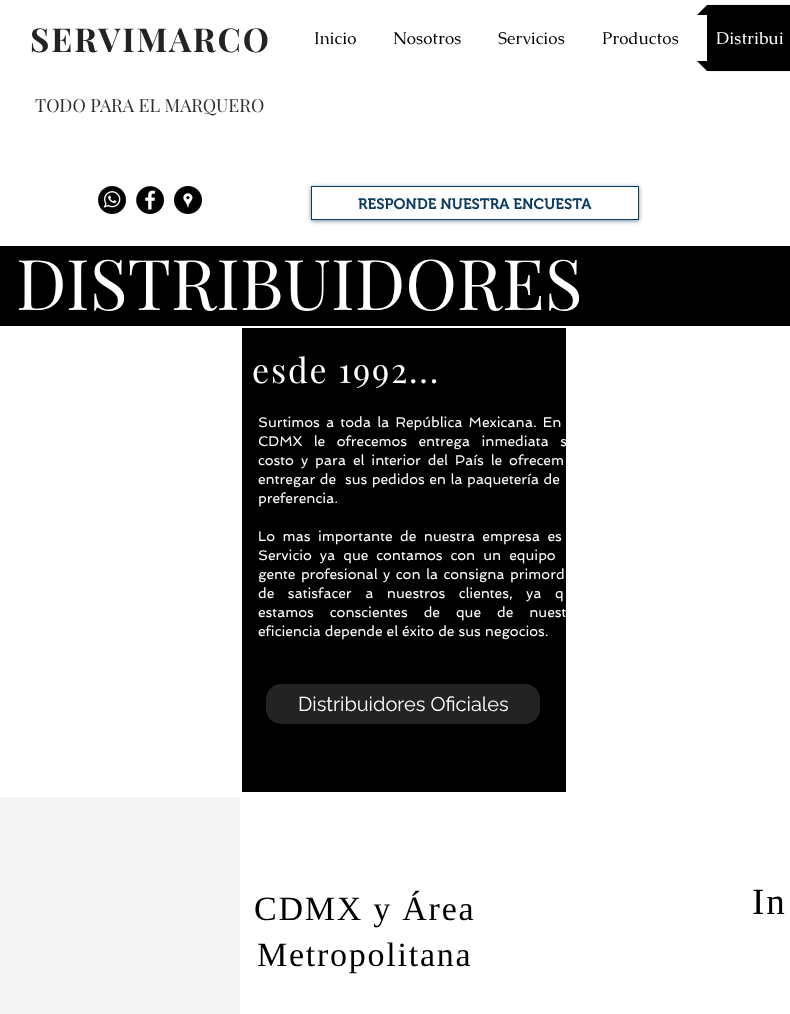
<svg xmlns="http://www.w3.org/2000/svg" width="790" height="1014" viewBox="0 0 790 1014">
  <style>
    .t1 { font: bold 33px Playfair Display; letter-spacing: 2px; fill: #232323; }
    .t2 { font: 17px Caudex; fill: #000; }
    .t3 { font: 17px Caudex; fill: #fff; }
    .t4 { font: 18px Playfair Display; fill: #2f2e2e; }
    .t5 { font: 600 15px 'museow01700'; fill: #0c3c60; }
    .t6 { font: 70px Playfair Display; fill: #fff; }
    .t7 { font: 34px Playfair Display; letter-spacing: 1.75px; fill: #fff; }
    .t8 { font: 14px Spinnaker; fill: #fff; }
    .t9 { font: 20px Raleway; fill: #fff; }
    .t10 { font: 34px Liberation Serif; letter-spacing: 1.75px; fill: #000; }
    .t11 { font: 37px Liberation Serif; letter-spacing: 2px; fill: #000; }
  </style>
  <defs>
    <clipPath id="clip1"><path d="M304 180H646V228H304ZM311 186H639V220H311Z" clip-rule="evenodd"/></clipPath>
  </defs>
  <rect width="100%" height="100%" fill="#fff"/>
  <text x="30" y="52" class="t1">SERVIMARCO</text>
  <text x="314" y="44" class="t2">Inicio</text>
  <text x="393" y="44" class="t2">Nosotros</text>
  <text x="498" y="44" class="t2">Servicios</text>
  <text x="602" y="44" class="t2">Productos</text>
  <rect x="709" y="5" width="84" height="66" fill="#00000033" filter="blur(1px)"/>
  <path d="M707 15H697L707 5Z" fill="#000"/>
  <rect x="707" y="5" width="83" height="66" fill="#000"/>
  <path d="M697 61H707V71Z" fill="#000"/>
  <text x="716" y="44" class="t3">Distribui</text>
  <text x="35" y="112" class="t4">TODO PARA EL MARQUERO</text>
  <image x="98" y="186" width="28" height="28" href="images/1.png"/>
  <image x="136" y="186" width="28" height="28" href="images/2.png"/>
  <image x="174" y="186" width="28" height="28" href="images/3.png"/>
  <g clip-path="url(#clip1)">
    <rect x="311" y="187" width="328" height="34" fill="#0c3c6099" filter="blur(2px)"/>
  </g>
  <rect x="311.5" y="186.5" width="327" height="33" fill="none" stroke="#0c3c60"/>
  <text x="358" y="209" class="t5">RESPONDE NUESTRA ENCUESTA</text>
  <rect x="0" y="246" width="790" height="80" fill="#000"/>
  <text x="16" y="310" class="t6">DISTRIBUIDORES</text>
  <rect x="242" y="328" width="324" height="464" fill="#000"/>
  <text x="252" y="383" class="t7">esde 1992...</text>
  <text x="258" y="427" word-spacing="2.25" class="t8">Surtimos a toda la República Mexicana. En</text>
  <text x="258" y="446" word-spacing="7.5" class="t8">CDMX le ofrecemos entrega inmediata s</text>
  <text x="258" y="465" word-spacing="3" class="t8">costo y para el interior del País le ofrecem</text>
  <text x="258" y="484" word-spacing="0.5" class="t8" xml:space="preserve">entregar de  sus pedidos en la paquetería de</text>
  <text x="258" y="503" class="t8">preferencia.</text>
  <text x="258" y="541" word-spacing="3.5" class="t8">Lo mas importante de nuestra empresa es</text>
  <text x="258" y="560" word-spacing="4" class="t8">Servicio ya que contamos con un equipo</text>
  <text x="258" y="579" word-spacing="1.5" class="t8">gente profesional y con la consigna primord</text>
  <text x="258" y="598" word-spacing="9.5" class="t8">de satisfacer a nuestros clientes, ya q</text>
  <text x="258" y="617" word-spacing="12" class="t8">estamos conscientes de que de nuest</text>
  <text x="258" y="636" class="t8">eficiencia depende el éxito de sus negocios.</text>
  <rect x="266" y="684" width="274" height="40" rx="15" fill="#232323"/>
  <text x="298" y="711" class="t9">Distribuidores Oficiales</text>
  <rect x="0" y="797" width="240" height="217" fill="#f5f5f5"/>
  <text x="254" y="920" class="t10">CDMX y Área</text>
  <text x="257" y="966" class="t10">Metropolitana</text>
  <text x="752" y="914" class="t11">In</text>
</svg>
